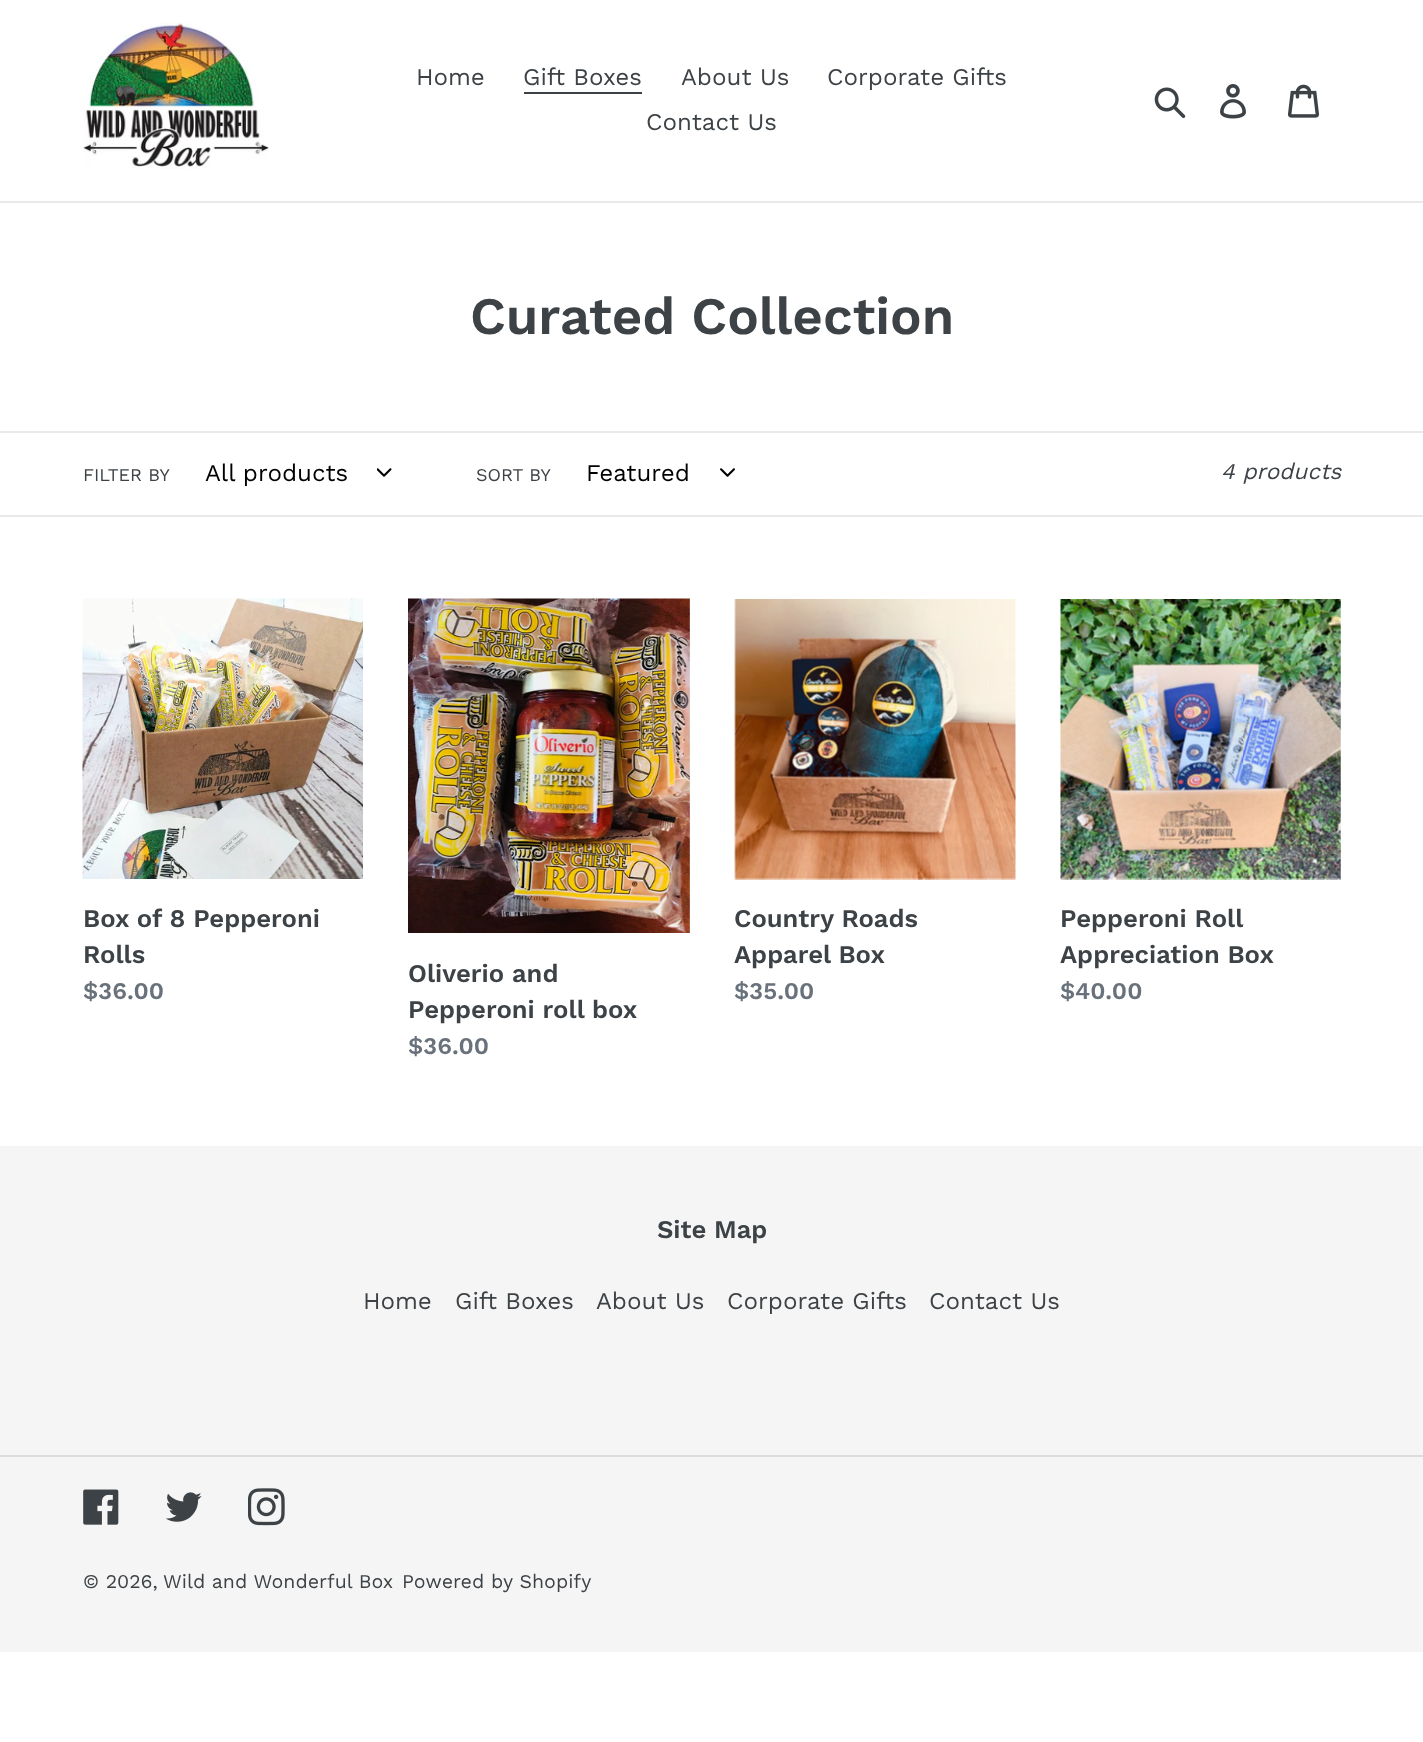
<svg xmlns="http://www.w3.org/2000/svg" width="1423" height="1742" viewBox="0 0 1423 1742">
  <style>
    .t1 { font: 24px Work Sans; fill: #3d4246; }
    .t2 { font: 600 52.5px Work Sans; fill: #3d4246; }
    .t3 { font: 18px Work Sans; fill: #3d4246; }
    .t4 { font: 24px Work Sans; fill: #000; }
    .t5 { font: italic 22.5px Work Sans; fill: #3d4246; }
    .t6 { font: 600 25.5px Work Sans; fill: #3d4246; }
    .t7 { font: 600 24px Work Sans; fill: #69727b; }
    .t8 { font: 19.5px Work Sans; fill: #3d4246; }
  </style>
  <rect width="100%" height="100%" fill="#fff"/>
  <rect x="0" y="201" width="1423" height="2" fill="#e8e9eb"/>
  <image x="83" y="22" width="186" height="147" href="images/1.png"/>
  <text x="416" y="85" class="t1">Home</text>
  <text x="523" y="85" class="t1">Gift Boxes</text>
  <rect x="524" y="92" width="118" height="2" fill="#3d4246"/>
  <text x="681" y="85" class="t1">About Us</text>
  <text x="827" y="85" class="t1">Corporate Gifts</text>
  <text x="646" y="130" class="t1">Contact Us</text>
  <image x="1154" y="87" width="32" height="32" href="images/2.png"/>
  <image x="1220" y="84" width="26" height="35" href="images/3.png"/>
  <image x="1287" y="84" width="32" height="34" href="images/4.png"/>
  <text x="470" y="334" class="t2">Curated Collection</text>
  <rect x="0" y="431" width="1423" height="2" fill="#e8e9eb"/>
  <rect x="0" y="515" width="1423" height="2" fill="#e8e9eb"/>
  <text x="83" y="481" class="t3">FILTER BY</text>
  <text x="205" y="481" class="t4">All products</text>
  <image x="377" y="468" width="15" height="9" href="images/5.png"/>
  <text x="476" y="481" class="t3">SORT BY</text>
  <text x="586" y="481" class="t4">Featured</text>
  <image x="720" y="468" width="15" height="9" href="images/6.png"/>
  <text x="1221" y="479" class="t5">4 products</text>
  <image x="82" y="598" width="281" height="281" href="images/7.png"/>
  <text x="83" y="927" class="t6">Box of 8 Pepperoni</text>
  <text x="83" y="963" class="t6">Rolls</text>
  <text x="83" y="999" class="t7">$36.00</text>
  <image x="408" y="598" width="282" height="335" href="images/8.png"/>
  <text x="408" y="982" class="t6">Oliverio and</text>
  <text x="408" y="1018" class="t6">Pepperoni roll box</text>
  <text x="408" y="1054" class="t7">$36.00</text>
  <image x="734" y="599" width="282" height="281" href="images/9.png"/>
  <text x="734" y="927" class="t6">Country Roads</text>
  <text x="734" y="963" class="t6">Apparel Box</text>
  <text x="734" y="999" class="t7">$35.00</text>
  <image x="1060" y="599" width="281" height="281" href="images/10.png"/>
  <text x="1060" y="927" class="t6">Pepperoni Roll</text>
  <text x="1060" y="963" class="t6">Appreciation Box</text>
  <text x="1060" y="999" class="t7">$40.00</text>
  <rect x="0" y="1146" width="1423" height="506" fill="#f5f5f5"/>
  <text x="657" y="1238" class="t6">Site Map</text>
  <text x="363" y="1309" class="t1">Home</text>
  <text x="455" y="1309" class="t1">Gift Boxes</text>
  <text x="596" y="1309" class="t1">About Us</text>
  <text x="727" y="1309" class="t1">Corporate Gifts</text>
  <text x="929" y="1309" class="t1">Contact Us</text>
  <rect x="0" y="1455" width="1423" height="2" fill="#dcdcdc"/>
  <image x="83" y="1489" width="36" height="36" href="images/11.png"/>
  <image x="165" y="1492" width="37" height="30" href="images/12.png"/>
  <image x="248" y="1488" width="37" height="38" href="images/13.png"/>
  <text x="83" y="1588" class="t8">© 2026,</text>
  <text x="163" y="1588" class="t8">Wild and Wonderful Box</text>
  <text x="402" y="1588" class="t8">Powered by Shopify</text>
</svg>
